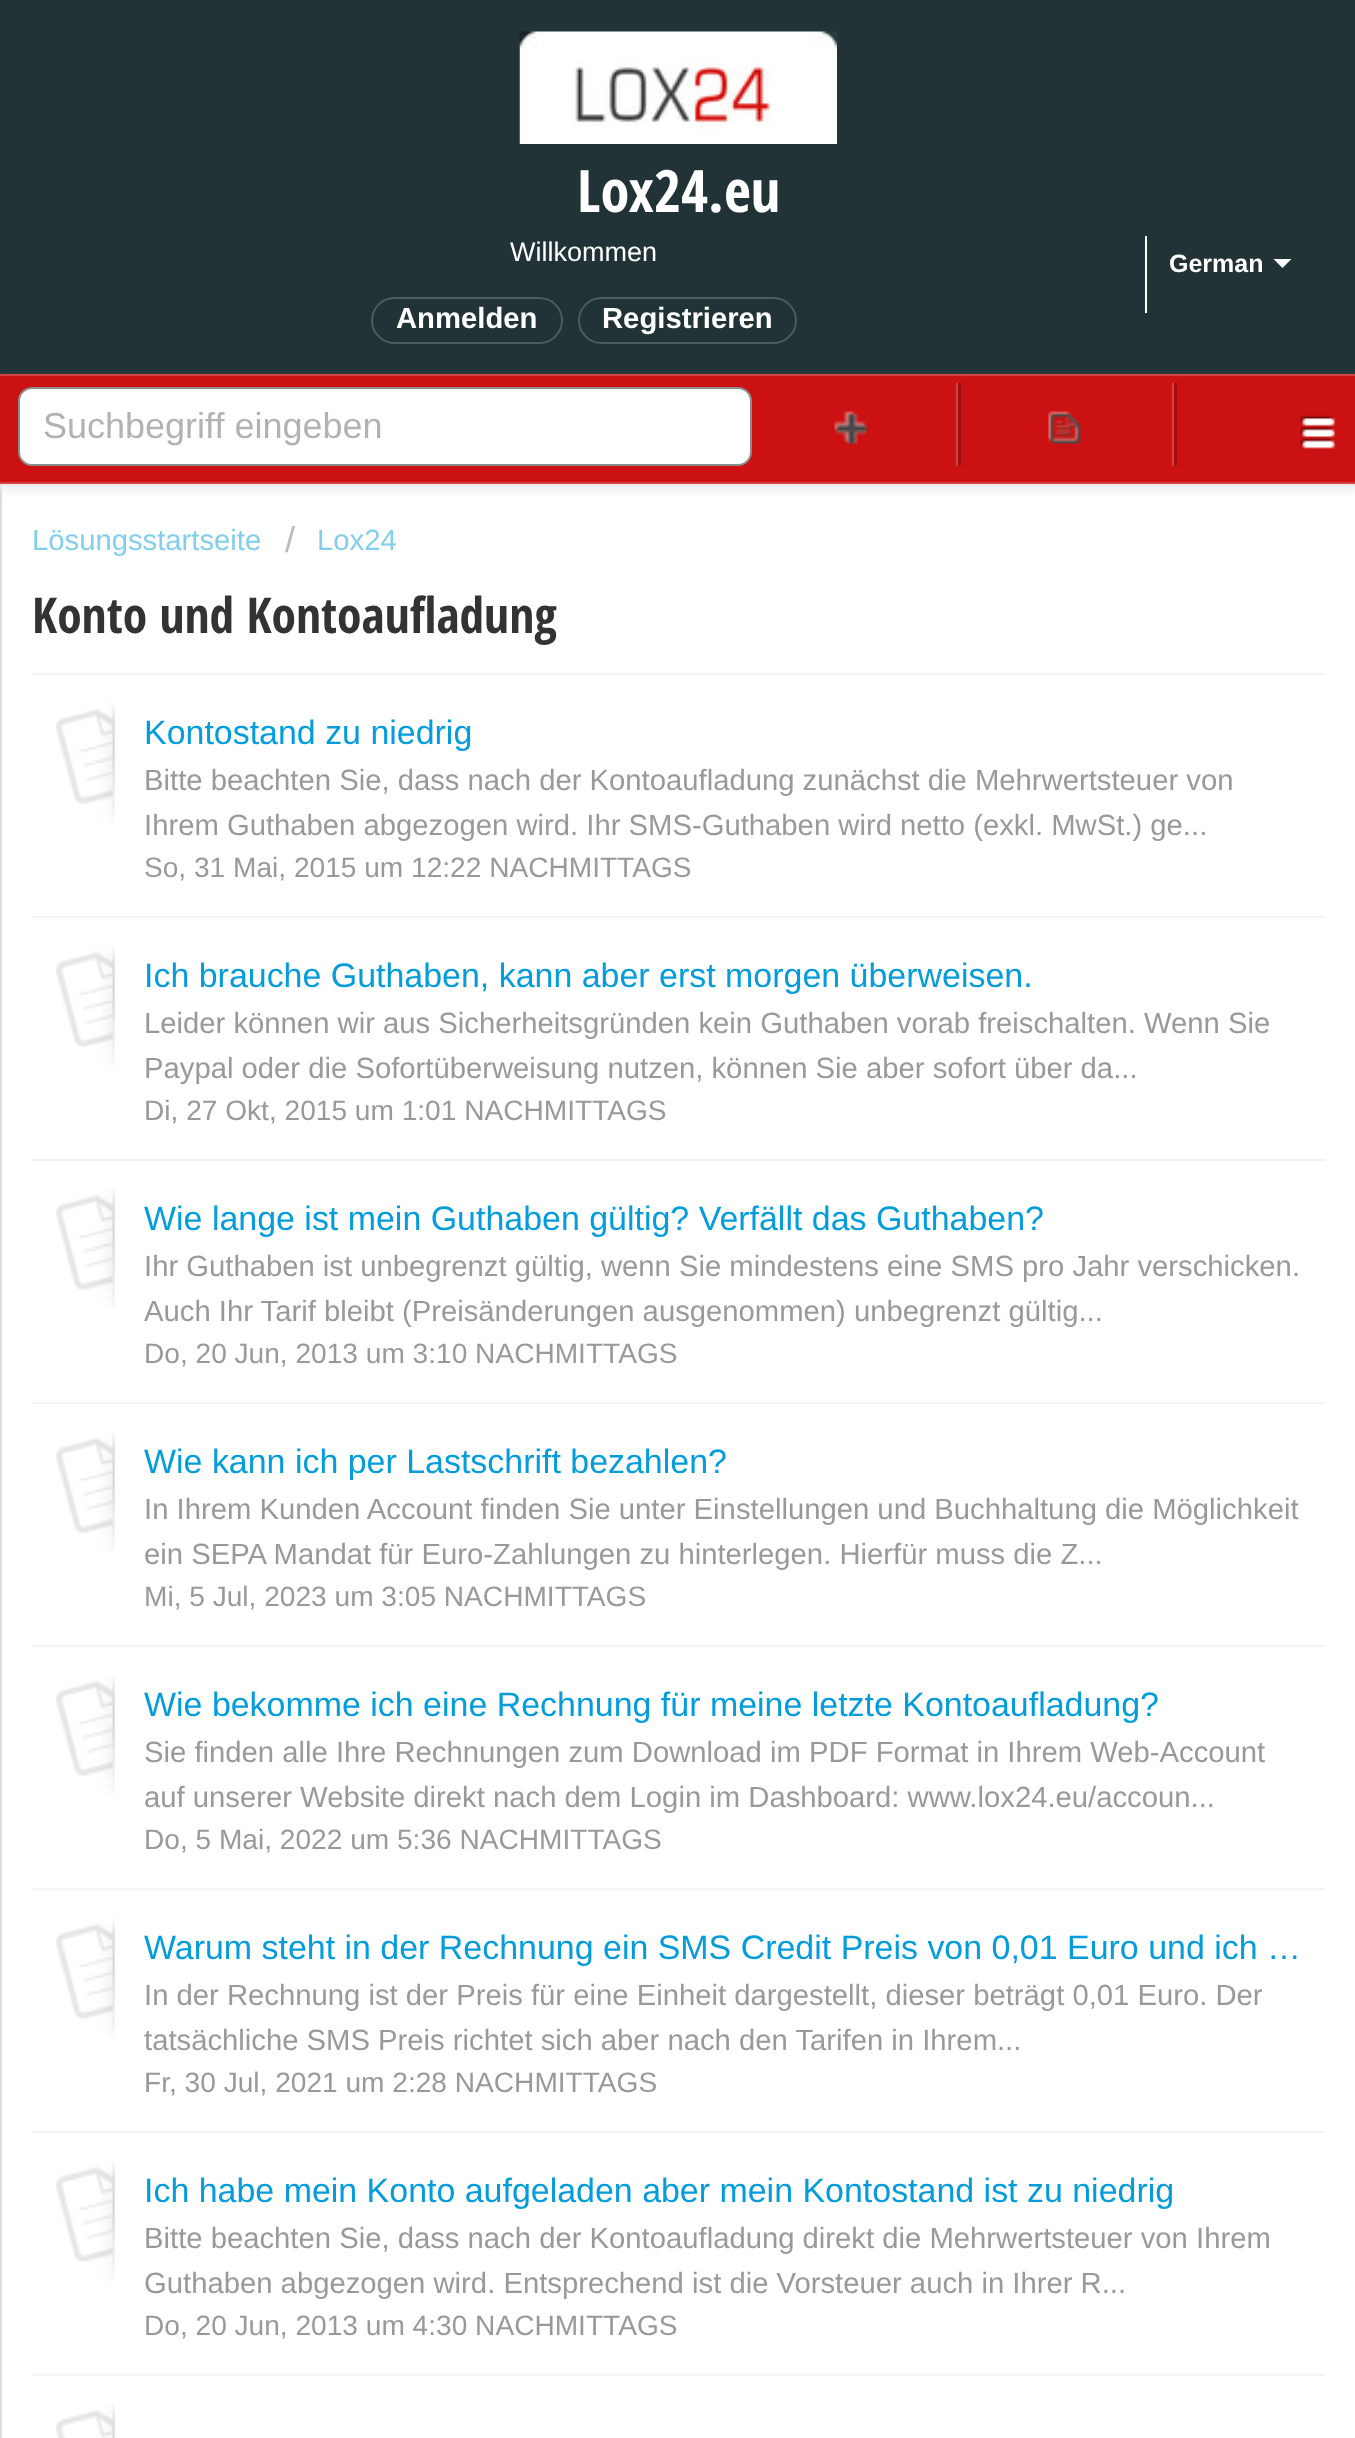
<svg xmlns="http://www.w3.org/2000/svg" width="1355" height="2438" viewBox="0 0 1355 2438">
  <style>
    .t1 { font: bold 58.5px Open Sans Condensed; fill: #fff; }
    .t2 { font: 27px Liberation Sans; fill: #fff; }
    .t3 { font: bold 25px Liberation Sans; fill: #fff; }
    .t4 { font: bold 29.25px Liberation Sans; fill: #fff; }
    .t5 { font: 36px Liberation Sans; fill: #b2b2b2; }
    .t6 { font: 29.25px Liberation Sans; fill: #82ceed; }
    .t7 { font: 36px Liberation Sans; fill: #bbb; }
    .t8 { font: bold 49.5px Open Sans Condensed; fill: #333; }
    .t9 { font: 33.95px Liberation Sans; fill: #049cdb; }
    .t10 { font: 29.25px Liberation Sans; fill: #999; }
    .t11 { font: 28.1px Liberation Sans; fill: #999; }
  </style>
  <rect width="100%" height="100%" fill="#213337"/>
  <image x="519" y="31" width="318" height="113" href="images/1.png"/>
  <text x="577" y="212" class="t1">Lox24.eu</text>
  <text x="510" y="261" class="t2">Willkommen</text>
  <rect x="1145" y="236" width="2" height="77" fill="#fff"/>
  <text x="1169" y="272" class="t3">German</text>
  <path d="M1273.5 259H1291.5L1282.5 268Z" fill="#fff"/>
  <rect x="372" y="298" width="190" height="45" rx="22.5" fill="none" stroke="#4d5c5f" stroke-width="2"/>
  <text x="396" y="328" class="t4">Anmelden</text>
  <rect x="579" y="298" width="217" height="45" rx="22.5" fill="none" stroke="#4d5c5f" stroke-width="2"/>
  <text x="602" y="328" class="t4">Registrieren</text>
  <rect x="1" y="485" width="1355" height="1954" fill="#fff" stroke="#dcdcdc" stroke-width="2"/>
  <rect x="0" y="380" width="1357" height="111" fill="#eee" filter="blur(4.5px)"/>
  <rect x="0" y="376" width="1355" height="106" fill="#cb1112"/>
  <rect x="0" y="374" width="1355" height="2" fill="#d54141"/>
  <rect x="0" y="482" width="1355" height="2" fill="#d54141"/>
  <image x="1300" y="415" width="35" height="34" href="images/2.png"/>
  <rect x="19" y="388" width="732" height="77" rx="13" fill="#fff" stroke="#8c8c8c" stroke-width="2"/>
  <text x="43" y="438" class="t5">Suchbegriff eingeben</text>
  <path d="M747 466H961V383H958V466Z" fill="#a20e0e"/>
  <rect x="956" y="383" width="2" height="83" fill="#d54141"/>
  <image x="834" y="411" width="33" height="33" href="images/3.png"/>
  <path d="M961 466H1177V383H1174V466Z" fill="#a20e0e"/>
  <rect x="1172" y="383" width="2" height="83" fill="#d54141"/>
  <image x="1048" y="411" width="33" height="33" href="images/4.png"/>
  <text x="32" y="550" class="t6">Lösungsstartseite</text>
  <text x="285" y="552" class="t7">/</text>
  <text x="317" y="550" class="t6">Lox24</text>
  <text x="32" y="633" class="t8">Konto und Kontoaufladung</text>
  <rect x="32" y="673" width="1293" height="2" fill="#f3f3f3"/>
  <image x="56" y="703" width="59" height="120" href="images/5.png"/>
  <text x="144" y="744" class="t9">Kontostand zu niedrig</text>
  <text x="144" y="790" class="t10">Bitte beachten Sie, dass nach der Kontoaufladung zunächst die Mehrwertsteuer von</text>
  <text x="144" y="835" class="t10">Ihrem Guthaben abgezogen wird. Ihr SMS-Guthaben wird netto (exkl. MwSt.) ge...</text>
  <text x="144" y="877" class="t11">So, 31 Mai, 2015 um 12:22 NACHMITTAGS</text>
  <rect x="32" y="916" width="1293" height="2" fill="#f3f3f3"/>
  <image x="56" y="946" width="59" height="120" href="images/5.png"/>
  <text x="144" y="987" class="t9">Ich brauche Guthaben, kann aber erst morgen überweisen.</text>
  <text x="144" y="1033" class="t10">Leider können wir aus Sicherheitsgründen kein Guthaben vorab freischalten. Wenn Sie</text>
  <text x="144" y="1078" class="t10">Paypal oder die Sofortüberweisung nutzen, können Sie aber sofort über da...</text>
  <text x="144" y="1120" class="t11">Di, 27 Okt, 2015 um 1:01 NACHMITTAGS</text>
  <rect x="32" y="1159" width="1293" height="2" fill="#f3f3f3"/>
  <image x="56" y="1189" width="59" height="120" href="images/5.png"/>
  <text x="144" y="1230" class="t9">Wie lange ist mein Guthaben gültig? Verfällt das Guthaben?</text>
  <text x="144" y="1276" class="t10">Ihr Guthaben ist unbegrenzt gültig, wenn Sie mindestens eine SMS pro Jahr verschicken.</text>
  <text x="144" y="1321" class="t10">Auch Ihr Tarif bleibt (Preisänderungen ausgenommen) unbegrenzt gültig...</text>
  <text x="144" y="1363" class="t11">Do, 20 Jun, 2013 um 3:10 NACHMITTAGS</text>
  <rect x="32" y="1402" width="1293" height="2" fill="#f3f3f3"/>
  <image x="56" y="1432" width="59" height="120" href="images/5.png"/>
  <text x="144" y="1473" class="t9">Wie kann ich per Lastschrift bezahlen?</text>
  <text x="144" y="1519" class="t10">In Ihrem Kunden Account finden Sie unter Einstellungen und Buchhaltung die Möglichkeit</text>
  <text x="144" y="1564" class="t10">ein SEPA Mandat für Euro-Zahlungen zu hinterlegen. Hierfür muss die Z...</text>
  <text x="144" y="1606" class="t11">Mi, 5 Jul, 2023 um 3:05 NACHMITTAGS</text>
  <rect x="32" y="1645" width="1293" height="2" fill="#f3f3f3"/>
  <image x="56" y="1675" width="59" height="120" href="images/5.png"/>
  <text x="144" y="1716" class="t9">Wie bekomme ich eine Rechnung für meine letzte Kontoaufladung?</text>
  <text x="144" y="1762" class="t10">Sie finden alle Ihre Rechnungen zum Download im PDF Format in Ihrem Web-Account</text>
  <text x="144" y="1807" class="t10">auf unserer Website direkt nach dem Login im Dashboard: www.lox24.eu/accoun...</text>
  <text x="144" y="1849" class="t11">Do, 5 Mai, 2022 um 5:36 NACHMITTAGS</text>
  <rect x="32" y="1888" width="1293" height="2" fill="#f3f3f3"/>
  <image x="56" y="1918" width="59" height="120" href="images/5.png"/>
  <text x="144" y="1959" class="t9">Warum steht in der Rechnung ein SMS Credit Preis von 0,01 Euro und ich …</text>
  <text x="144" y="2005" class="t10">In der Rechnung ist der Preis für eine Einheit dargestellt, dieser beträgt 0,01 Euro. Der</text>
  <text x="144" y="2050" class="t10">tatsächliche SMS Preis richtet sich aber nach den Tarifen in Ihrem...</text>
  <text x="144" y="2092" class="t11">Fr, 30 Jul, 2021 um 2:28 NACHMITTAGS</text>
  <rect x="32" y="2131" width="1293" height="2" fill="#f3f3f3"/>
  <image x="56" y="2161" width="59" height="120" href="images/5.png"/>
  <text x="144" y="2202" class="t9">Ich habe mein Konto aufgeladen aber mein Kontostand ist zu niedrig</text>
  <text x="144" y="2248" class="t10">Bitte beachten Sie, dass nach der Kontoaufladung direkt die Mehrwertsteuer von Ihrem</text>
  <text x="144" y="2293" class="t10">Guthaben abgezogen wird. Entsprechend ist die Vorsteuer auch in Ihrer R...</text>
  <text x="144" y="2335" class="t11">Do, 20 Jun, 2013 um 4:30 NACHMITTAGS</text>
  <rect x="32" y="2374" width="1293" height="2" fill="#f3f3f3"/>
  <image x="56" y="2404" width="59" height="34" href="images/6.png"/>
</svg>
